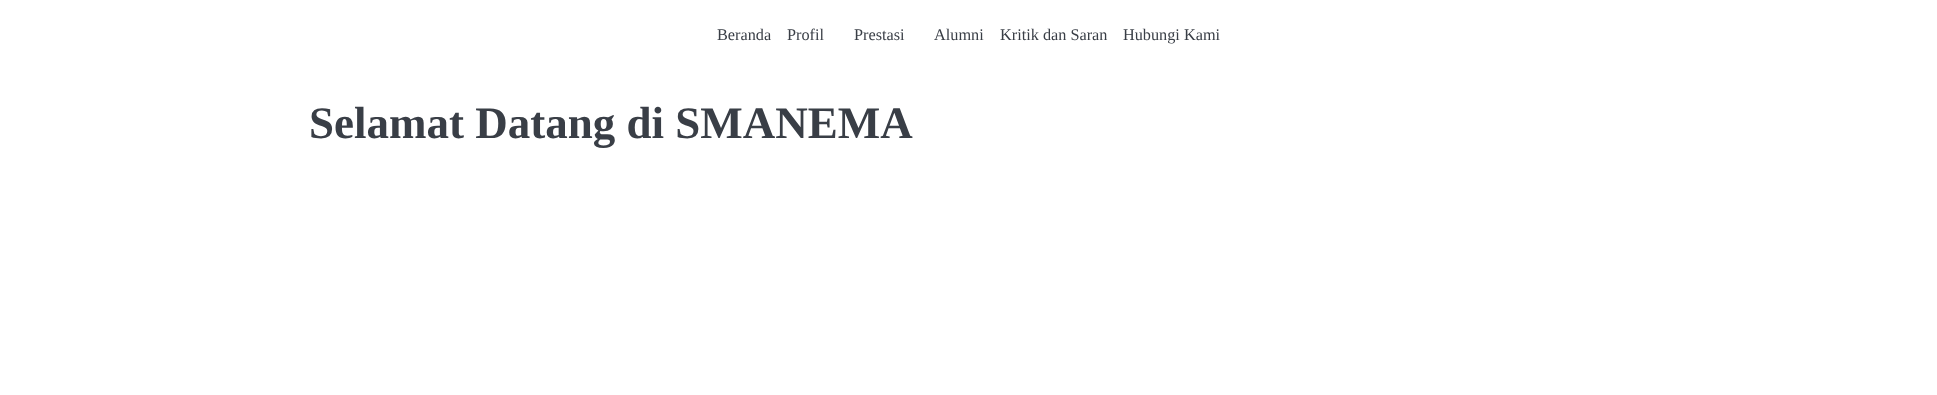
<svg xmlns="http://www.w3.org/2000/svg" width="1937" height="395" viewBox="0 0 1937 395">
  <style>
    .t1 { font: 16.25px Liberation Serif; fill: #393e46; }
    .t2 { font: bold 45px Liberation Serif; fill: #393e46; }
  </style>
  <rect width="100%" height="100%" fill="#fff"/>
  <text x="717" y="40" class="t1">Beranda</text>
  <text x="787" y="40" class="t1">Profil</text>
  <text x="854" y="40" class="t1">Prestasi</text>
  <text x="934" y="40" class="t1">Alumni</text>
  <text x="1000" y="40" class="t1">Kritik dan Saran</text>
  <text x="1123" y="40" class="t1">Hubungi Kami</text>
  <text x="309" y="138" class="t2">Selamat Datang di SMANEMA</text>
</svg>
